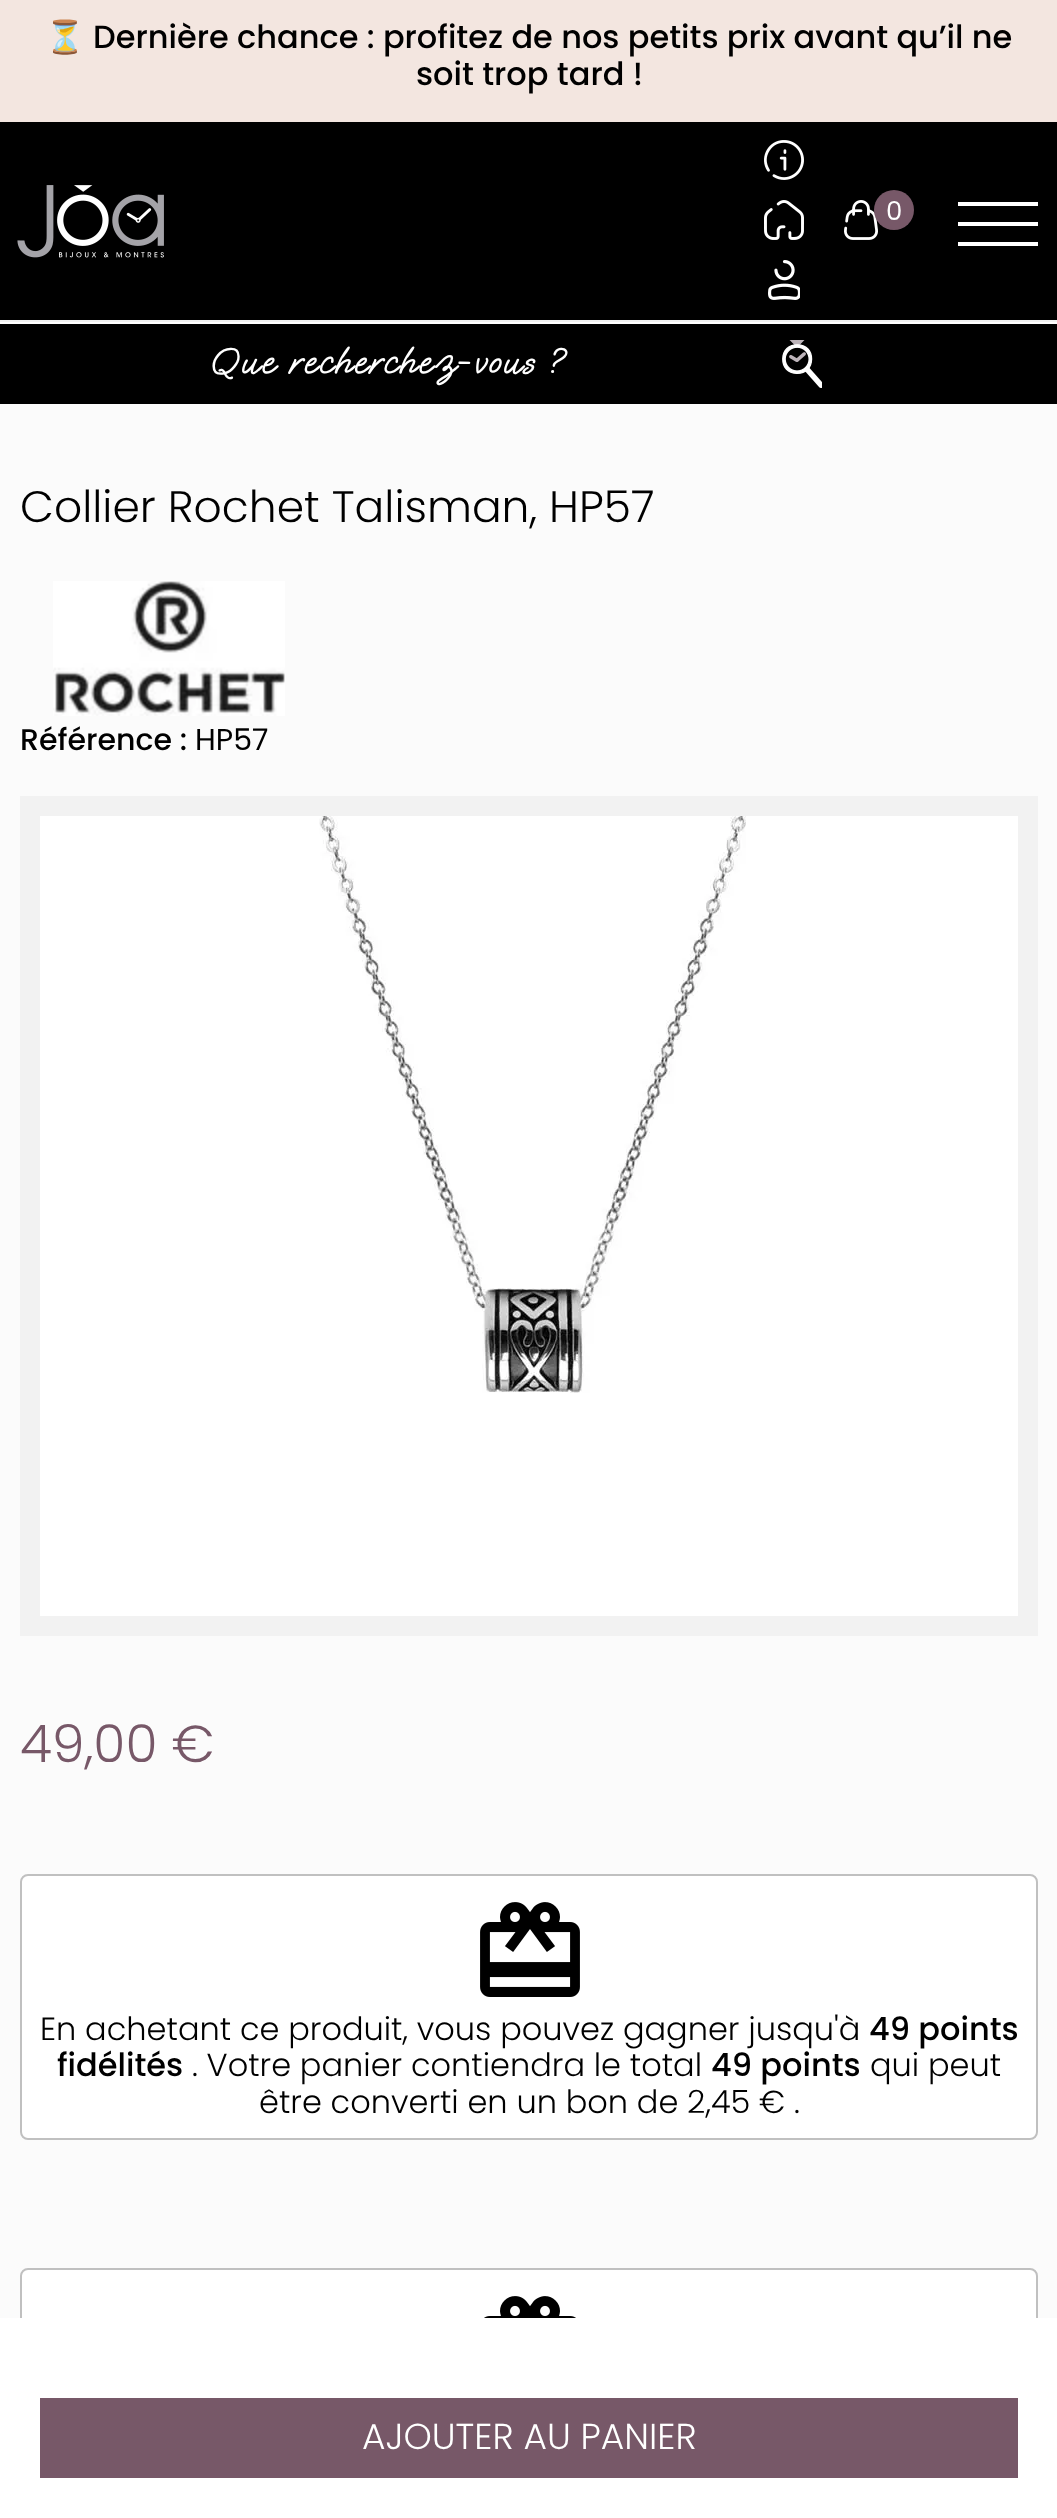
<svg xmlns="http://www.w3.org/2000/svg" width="1057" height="2518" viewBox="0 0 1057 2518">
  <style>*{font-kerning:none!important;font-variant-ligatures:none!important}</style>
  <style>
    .t1 { font: 32px Noto Color Emoji; fill: #000; }
    .t2 { font: 500 32px Poppins; fill: #000; }
    .t3 { font: 26px Poppins; fill: #fff; }
    .t4 { font: bold 38px Oooh Baby; letter-spacing: 2px; fill: #fff; }
    .t5 { font: 300 44px Poppins; fill: #000; }
    .t6 { font: 500 30px Poppins; fill: #000; }
    .t7 { font: 30px Poppins; fill: #000; }
    .t8 { font: 300 52px Poppins; fill: #775868; }
    .t9 { font: 300 32px Poppins; fill: #000; }
    .t10 { font: 300 36px Poppins; fill: #fff; }
  </style>
  <rect width="100%" height="100%" fill="#fbfbfb"/>
  <rect x="0" y="0" width="1057" height="122" fill="#f3e6e0"/>
  <text x="45" y="48" class="t1">⏳</text>
  <text x="93" y="48" class="t2">Dernière chance : profitez de nos petits prix avant qu’il ne</text>
  <text x="416" y="85" class="t2">soit trop tard !</text>
  <rect x="0" y="122" width="1057" height="198" fill="#000"/>
  <rect x="0" y="320" width="1057" height="2" fill="#f2f2f2"/>
  <image x="17" y="185" width="147" height="73" href="images/1.png"/>
  <image x="764" y="140" width="40" height="40" href="images/2.png"/>
  <image x="764" y="200" width="40" height="40" href="images/3.png"/>
  <image x="768" y="260" width="32" height="40" href="images/4.png"/>
  <image x="844" y="200" width="34" height="40" href="images/5.png"/>
  <circle cx="894" cy="210" r="20" fill="#775868"/>
  <text x="886" y="220" class="t3">0</text>
  <rect x="958" y="202" width="80" height="4" fill="#fff"/>
  <rect x="958" y="222" width="80" height="4" fill="#fff"/>
  <rect x="958" y="242" width="80" height="4" fill="#fff"/>
  <rect x="0" y="324" width="1057" height="80" fill="#000"/>
  <rect x="0" y="322" width="1057" height="2" fill="#fff"/>
  <text x="209" y="373" class="t4">Que recherchez-vous ?</text>
  <image x="782" y="340" width="40" height="48" href="images/6.png"/>
  <text x="20" y="522" class="t5">Collier Rochet Talisman, HP57</text>
  <image x="53" y="581" width="232" height="135" href="images/7.png"/>
  <text x="20" y="750" class="t6">Référence :</text>
  <text x="195" y="750" class="t7">HP57</text>
  <rect x="20" y="796" width="1018" height="840" fill="#f2f2f2"/>
  <rect x="40" y="816" width="978" height="800" fill="#fff"/>
  <image x="319" y="816" width="427" height="577" href="images/8.png"/>
  <text x="20" y="1762" class="t8">49,00 €</text>
  <rect x="21" y="1875" width="1016" height="264" rx="7" fill="#fff" stroke="#c0c0c0" stroke-width="2"/>
  <image x="480" y="1902" width="100" height="95" href="images/9.png"/>
  <text x="40" y="2040" class="t9">En achetant ce produit, vous pouvez gagner jusqu'à</text>
  <text x="869" y="2040" class="t2">49 points</text>
  <text x="57" y="2076" class="t2">fidélités</text>
  <text x="192" y="2076" class="t9">. Votre panier contiendra le total</text>
  <text x="711" y="2076" class="t2">49 points</text>
  <text x="870" y="2076" class="t9">qui peut</text>
  <text x="259" y="2113" class="t9">être converti en un bon de 2,45 € .</text>
  <rect x="21" y="2269" width="1016" height="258" rx="7" fill="#fff" stroke="#c0c0c0" stroke-width="2"/>
  <rect x="0" y="2318" width="1057" height="200" fill="#fff"/>
  <rect x="40" y="2398" width="978" height="80" fill="#775868"/>
  <text x="362" y="2449" class="t10">AJOUTER AU PANIER</text>
  <image x="484" y="2296" width="92" height="22" href="images/10.png"/>
</svg>
